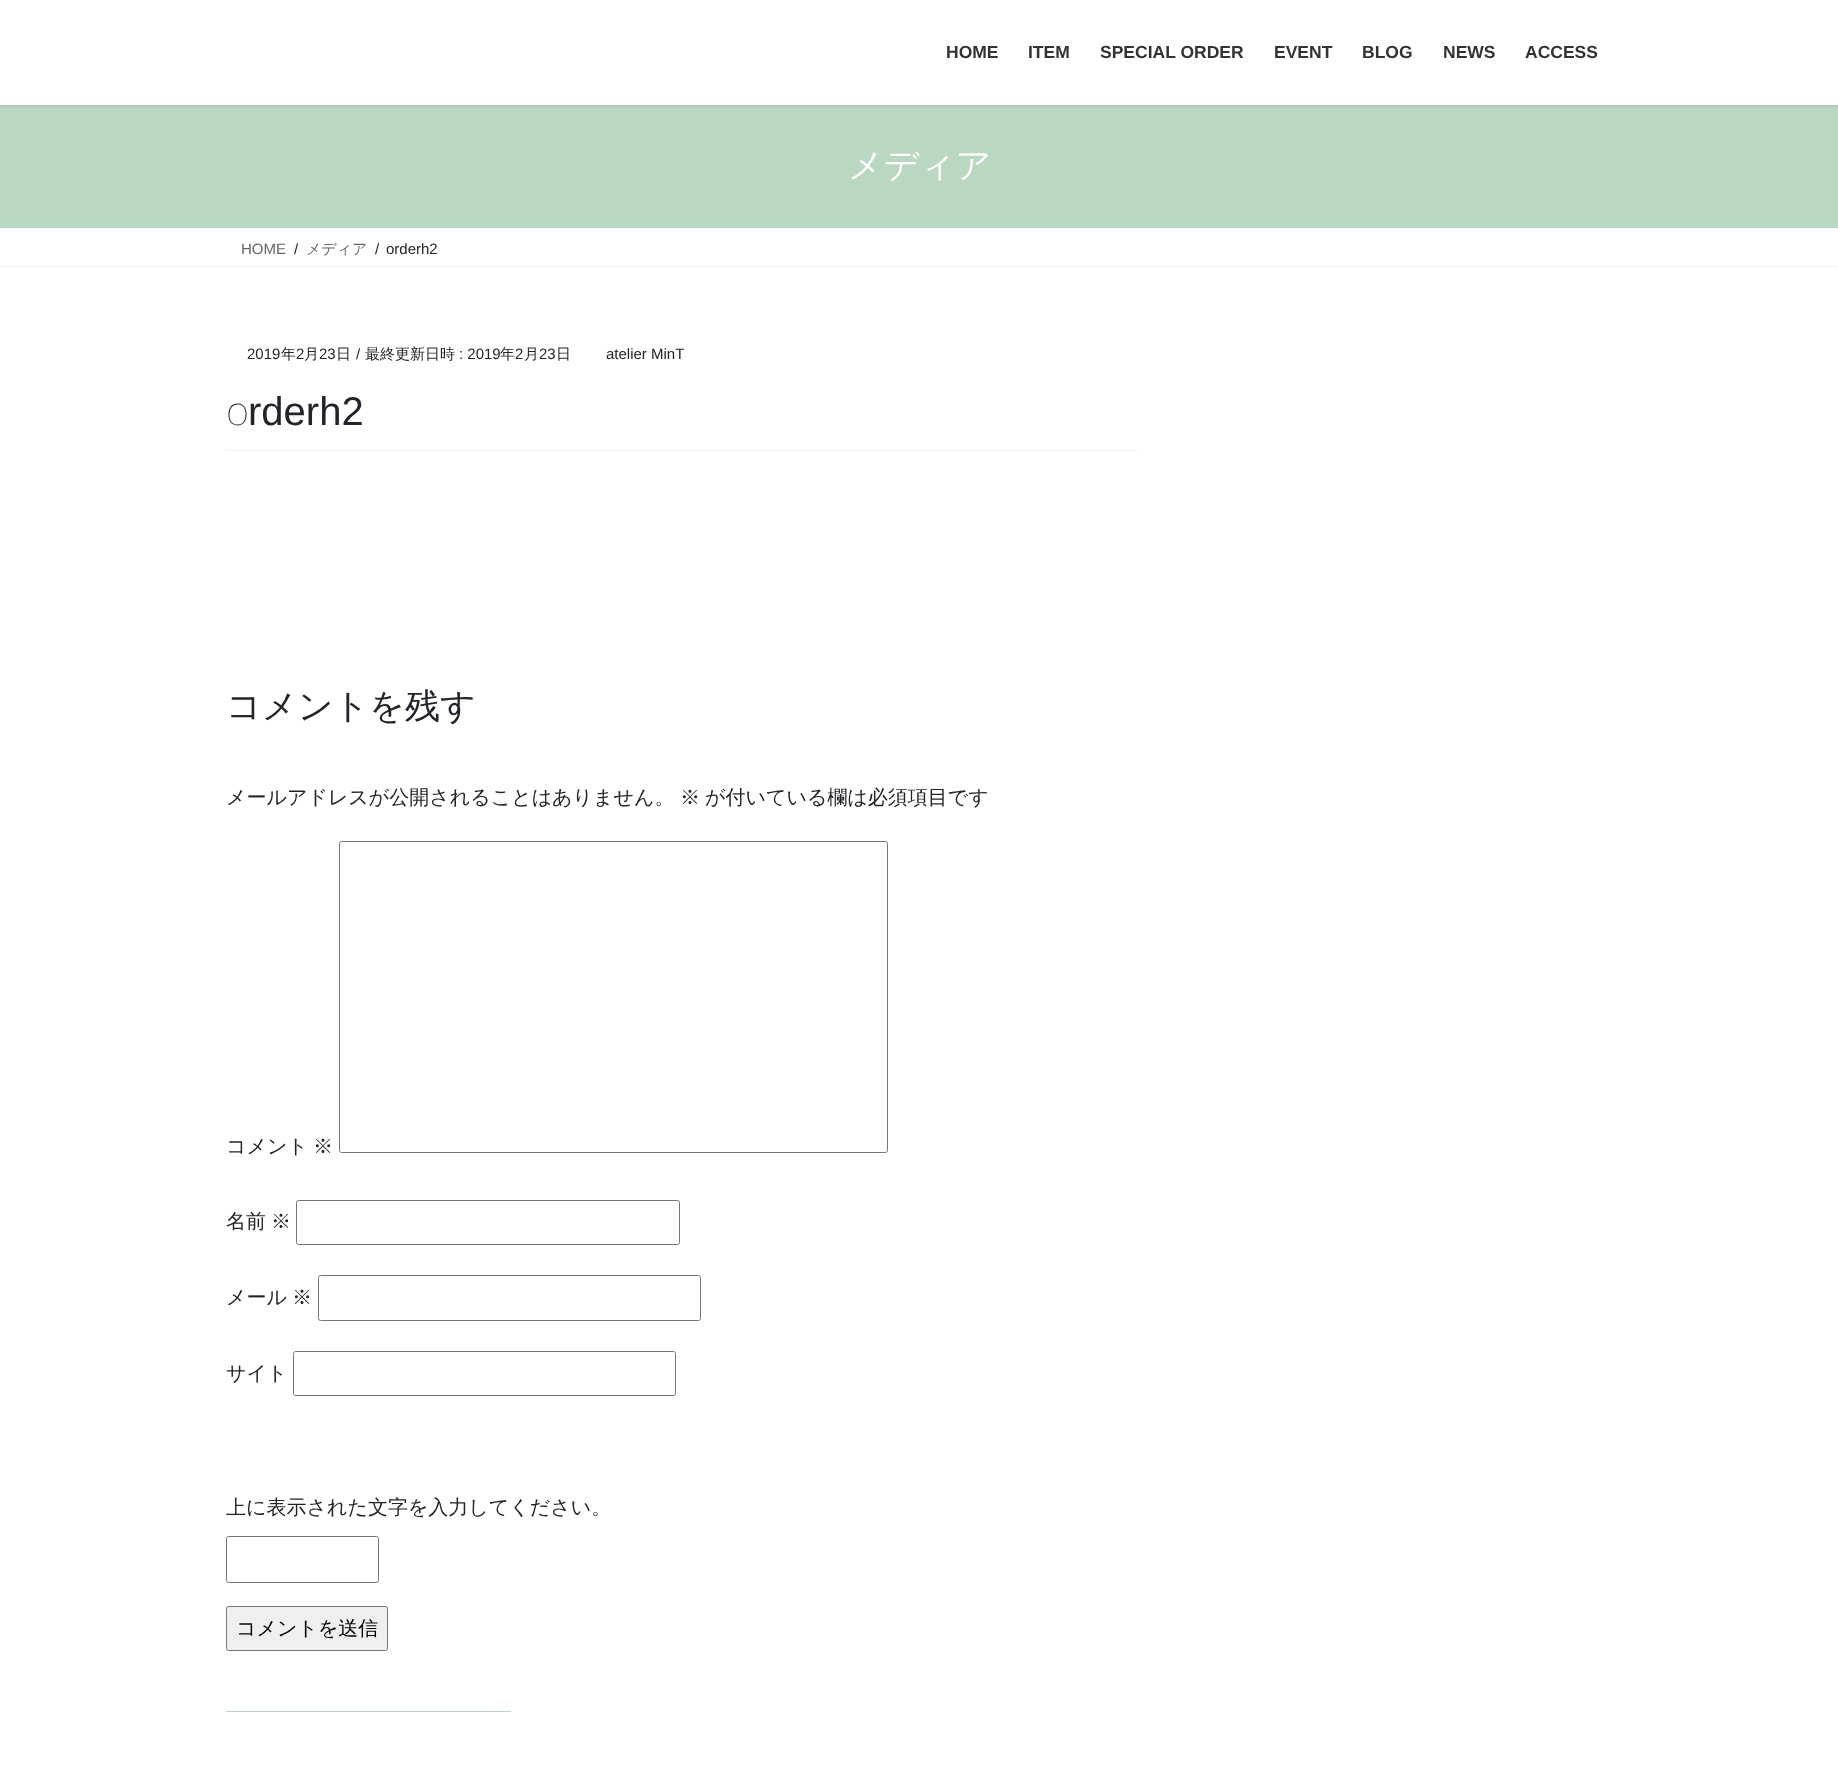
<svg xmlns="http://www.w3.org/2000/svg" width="1838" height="1786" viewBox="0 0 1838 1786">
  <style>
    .t1 { font: bold 17.5px Liberation Sans; fill: #333; }
    .t2 { font: 500 35px WenQuanYi Zen Hei; fill: #fff; }
    .t3 { font: 15px Liberation Sans; fill: #666; }
    .t4 { font: 15px Liberation Sans; fill: #212529; }
    .t5 { font: 500 15px WenQuanYi Zen Hei; fill: #666; }
    .t6 { font: 500 15px WenQuanYi Zen Hei; fill: #212529; }
    .t7 { font: 100 40px Noto Sans; fill: #333; }
    .t8 { font: 40px Liberation Sans; fill: #212529; }
    .t9 { font: 500 35px WenQuanYi Zen Hei; fill: #212529; }
    .t10 { font: 500 20px WenQuanYi Zen Hei; fill: #212529; }
    .t11 { font: 500 20px WenQuanYi Zen Hei; fill: #000; }
  </style>
  <defs>
    <clipPath id="clip1"><rect x="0" y="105" width="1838" height="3"/></clipPath>
  </defs>
  <rect width="100%" height="100%" fill="#fff"/>
  <rect x="0" y="105" width="1838" height="123" fill="#bad7c1"/>
  <g clip-path="url(#clip1)">
    <rect x="0" y="1" width="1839" height="105" fill="#0000001a" filter="blur(2px)"/>
  </g>
  <text x="946" y="58" class="t1">HOME</text>
  <text x="1028" y="58" class="t1">ITEM</text>
  <text x="1100" y="58" class="t1">SPECIAL ORDER</text>
  <text x="1274" y="58" class="t1">EVENT</text>
  <text x="1362" y="58" class="t1">BLOG</text>
  <text x="1443" y="58" class="t1">NEWS</text>
  <text x="1525" y="58" class="t1">ACCESS</text>
  <text x="848" y="177" class="t2">メディア</text>
  <rect x="0" y="266" width="1838" height="1" fill="#f2f2f2"/>
  <text x="241" y="254" class="t3">HOME</text>
  <text x="294" y="254" class="t4">/</text>
  <text x="306" y="254" class="t5">メディア</text>
  <text x="375" y="254" class="t4">/</text>
  <text x="386" y="254" class="t4">orderh2</text>
  <rect x="226" y="450" width="913" height="1" fill="#f2f2f2"/>
  <text x="247" y="359" class="t4">2019</text>
  <text x="281" y="359" class="t6">年</text>
  <text x="296" y="359" class="t4">2</text>
  <text x="304" y="359" class="t6">月</text>
  <text x="319" y="359" class="t4">23</text>
  <text x="336" y="359" class="t6">日</text>
  <text x="356" y="359" class="t4">/</text>
  <text x="365" y="359" class="t6">最終更新日時</text>
  <text x="459" y="359" class="t4">: 2019</text>
  <text x="500" y="359" class="t6">年</text>
  <text x="515" y="359" class="t4">2</text>
  <text x="524" y="359" class="t6">月</text>
  <text x="539" y="359" class="t4">23</text>
  <text x="556" y="359" class="t6">日</text>
  <text x="606" y="359" class="t4">atelier MinT</text>
  <text x="226" y="425" class="t7">o</text>
  <text x="248" y="425" class="t8">rderh2</text>
  <text x="226" y="718" class="t9">コメントを残す</text>
  <rect x="226" y="1711" width="285" height="1" fill="#bad7c1"/>
  <text x="226" y="804" class="t10">メールアドレスが公開されることはありません。</text>
  <text x="680" y="804" class="t10">※</text>
  <text x="705" y="804" class="t10">が付いている欄は必須項目です</text>
  <text x="226" y="1153" class="t10">コメント</text>
  <text x="313" y="1153" class="t10">※</text>
  <rect x="339.5" y="841.5" width="548" height="311" rx="2" fill="none" stroke="#767676"/>
  <text x="226" y="1228" class="t10">名前</text>
  <text x="271" y="1228" class="t10">※</text>
  <rect x="296.5" y="1200.5" width="383" height="44" rx="2" fill="none" stroke="#767676"/>
  <text x="226" y="1304" class="t10">メール</text>
  <text x="292" y="1304" class="t10">※</text>
  <rect x="318.5" y="1275.5" width="382" height="45" rx="2" fill="none" stroke="#767676"/>
  <text x="226" y="1380" class="t10">サイト</text>
  <rect x="293.5" y="1351.5" width="382" height="44" rx="2" fill="none" stroke="#767676"/>
  <text x="226" y="1514" class="t10">上に表示された文字を入力してください。</text>
  <rect x="226.5" y="1536.5" width="152" height="46" rx="2" fill="none" stroke="#767676"/>
  <rect x="226.5" y="1606.5" width="161" height="44" rx="2" fill="#efefef" stroke="#767676"/>
  <text x="236" y="1635" class="t11">コメントを送信</text>
</svg>
